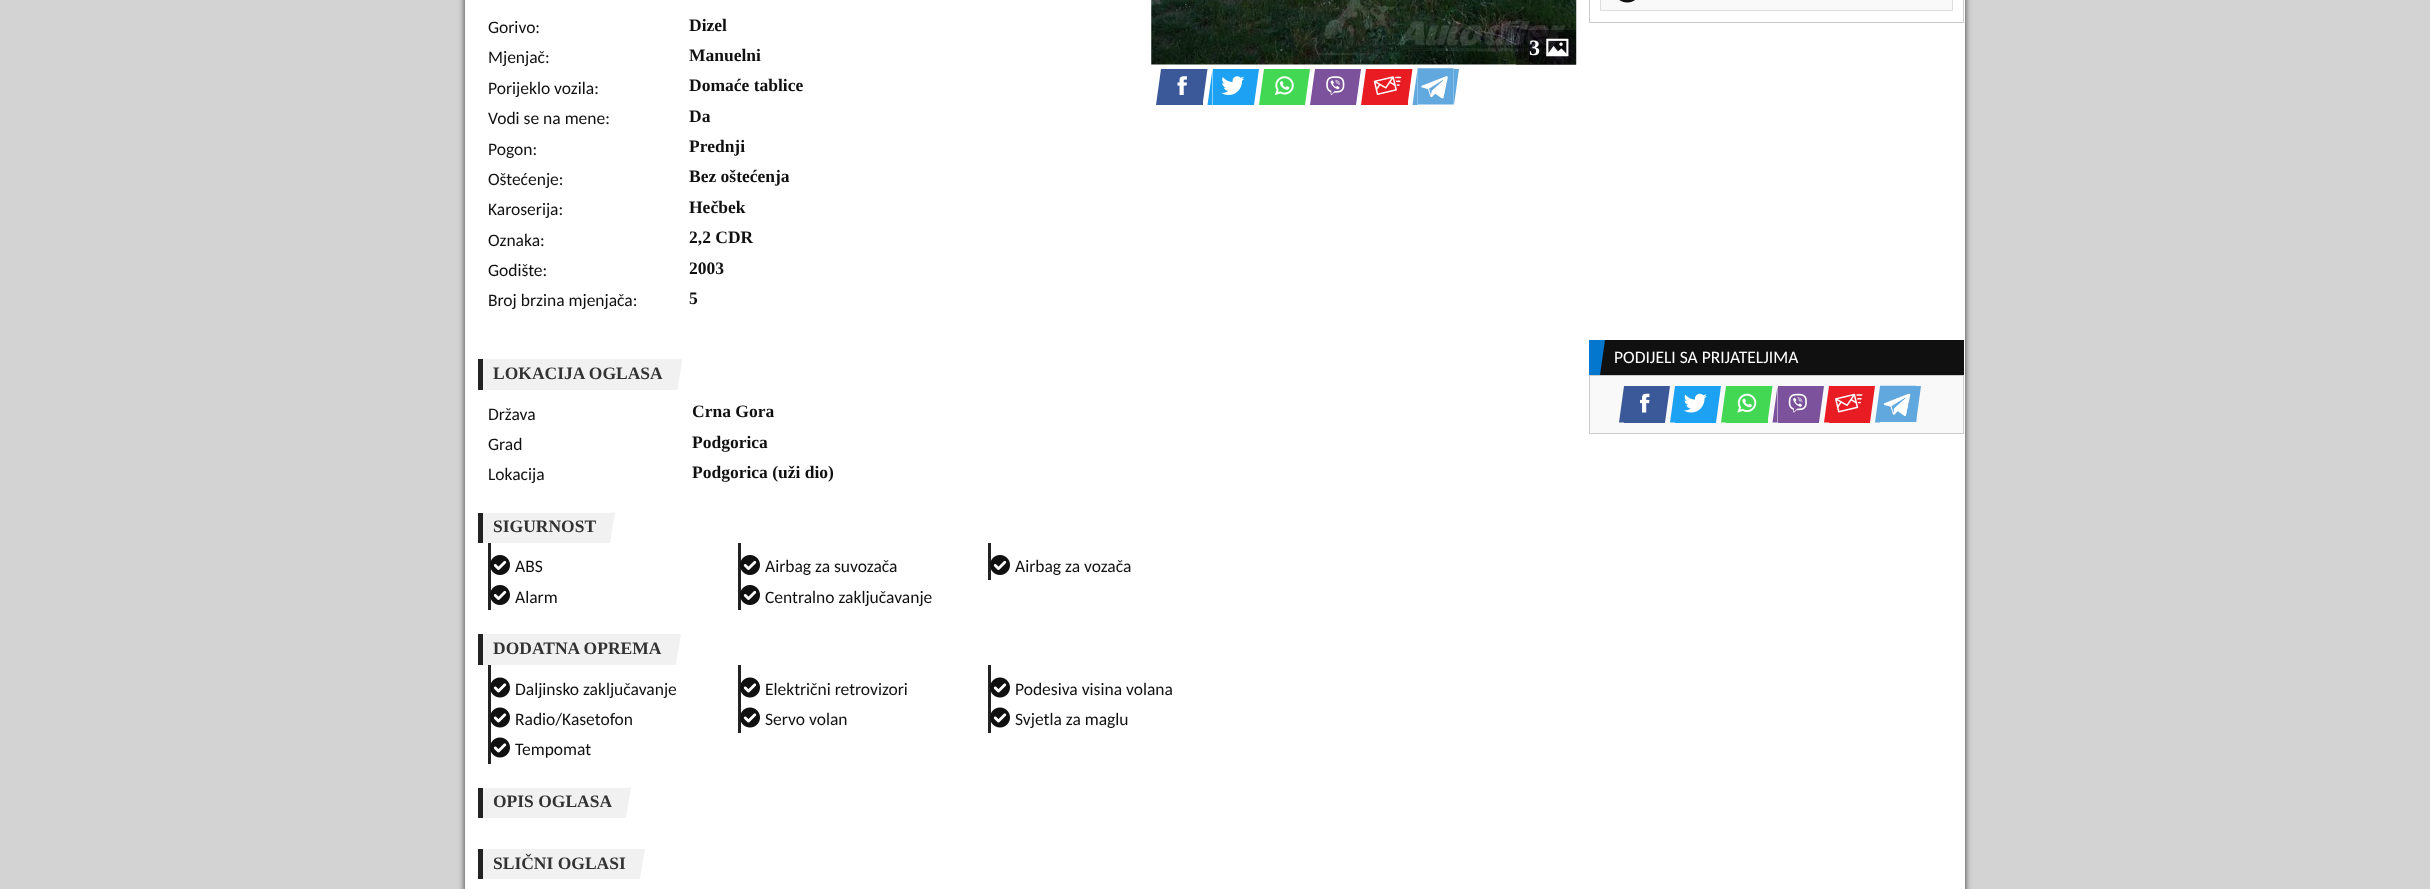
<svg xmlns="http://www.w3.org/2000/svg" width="2430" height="889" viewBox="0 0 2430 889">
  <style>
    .t1 { font: 17.5px Carlito; fill: #101010; }
    .t2 { font: bold 17.5px Liberation Serif; fill: #101010; }
    .t3 { font: bold 22px Liberation Serif; fill: #fff; }
    .t4 { font: bold 17.5px Liberation Serif; fill: #333; }
    .t5 { font: 17.5px Carlito; fill: #fff; }
  </style>
  <rect width="100%" height="100%" fill="#d3d3d3"/>
  <rect x="465" y="-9" width="1500" height="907" fill="#000000bf" filter="blur(3px)"/>
  <rect x="465" y="0" width="1500" height="889" fill="#fff"/>
  <text x="488" y="33" class="t1">Gorivo:</text>
  <text x="689" y="31" class="t2">Dizel</text>
  <text x="488" y="63" class="t1">Mjenjač:</text>
  <text x="689" y="61" class="t2">Manuelni</text>
  <text x="488" y="94" class="t1">Porijeklo vozila:</text>
  <text x="689" y="91" class="t2">Domaće tablice</text>
  <text x="488" y="124" class="t1">Vodi se na mene:</text>
  <text x="689" y="122" class="t2">Da</text>
  <text x="488" y="155" class="t1">Pogon:</text>
  <text x="689" y="152" class="t2">Prednji</text>
  <text x="488" y="185" class="t1">Oštećenje:</text>
  <text x="689" y="182" class="t2">Bez oštećenja</text>
  <text x="488" y="215" class="t1">Karoserija:</text>
  <text x="689" y="213" class="t2">Hečbek</text>
  <text x="488" y="246" class="t1">Oznaka:</text>
  <text x="689" y="243" class="t2">2,2 CDR</text>
  <text x="488" y="276" class="t1">Godište:</text>
  <text x="689" y="274" class="t2">2003</text>
  <text x="488" y="306" class="t1">Broj brzina mjenjača:</text>
  <text x="689" y="304" class="t2">5</text>
  <image x="1151" y="0" width="426" height="65" href="images/1.png"/>
  <rect x="1521" y="30" width="55" height="35" fill="#00000080"/>
  <path d="M1521 65H1516L1521 30Z" fill="#00000080"/>
  <text x="1529" y="55" class="t3">3</text>
  <image x="1546" y="38" width="23" height="19" href="images/2.png"/>
  <rect x="1161" y="69" width="42" height="36" fill="#3b5998"/>
  <image x="1177" y="76" width="10" height="19" href="images/3.png"/>
  <path d="M1161 105H1156L1161 69ZM1202.5 69H1207.5L1202.5 105Z" fill="#3b5998"/>
  <rect x="1213" y="69" width="41" height="36" fill="#1da1f2"/>
  <image x="1221" y="76" width="24" height="19" href="images/4.png"/>
  <path d="M1212.5 105H1207.5L1212.5 69ZM1254 69H1259L1254 105Z" fill="#1da1f2"/>
  <rect x="1264" y="69" width="41" height="36" fill="#43d854"/>
  <image x="1275" y="76" width="19" height="19" href="images/5.png"/>
  <path d="M1264 105H1259L1264 69ZM1305 69H1310L1305 105Z" fill="#43d854"/>
  <rect x="1315" y="69" width="41" height="36" fill="#7c529d"/>
  <image x="1326" y="76" width="19" height="19" href="images/6.png"/>
  <path d="M1315 105H1310L1315 69ZM1356 69H1361L1356 105Z" fill="#7c529d"/>
  <rect x="1366" y="69" width="42" height="36" fill="#e91c23"/>
  <image x="1373" y="76" width="29" height="19" href="images/7.png"/>
  <path d="M1366 105H1361L1366 69ZM1407.5 69H1412.5L1407.5 105Z" fill="#e91c23"/>
  <image x="1417" y="68" width="37" height="37" href="images/8.png"/>
  <path d="M1417.5 105H1412.5L1417.5 69ZM1454 69H1459L1454 105Z" fill="#61a8de"/>
  <rect x="483" y="359" width="195" height="31" fill="#f1f1f1"/>
  <rect x="478" y="359" width="5" height="31" fill="#222"/>
  <text x="493" y="379" class="t4">LOKACIJA OGLASA</text>
  <path d="M677.5 359H682.5L677.5 389Z" fill="#f1f1f1"/>
  <text x="488" y="420" class="t1">Država</text>
  <text x="692" y="417" class="t2">Crna Gora</text>
  <text x="488" y="450" class="t1">Grad</text>
  <text x="692" y="448" class="t2">Podgorica</text>
  <text x="488" y="480" class="t1">Lokacija</text>
  <text x="692" y="478" class="t2">Podgorica (uži dio)</text>
  <rect x="483" y="513" width="127" height="30" fill="#f1f1f1"/>
  <rect x="478" y="513" width="5" height="30" fill="#222"/>
  <text x="493" y="532" class="t4">SIGURNOST</text>
  <path d="M610 512.5H615L610 542.5Z" fill="#f1f1f1"/>
  <rect x="488" y="543" width="3" height="37" fill="#222"/>
  <image x="490" y="555" width="20" height="20" href="images/9.png"/>
  <text x="515" y="572" class="t1">ABS</text>
  <rect x="488" y="573" width="3" height="37" fill="#222"/>
  <image x="490" y="585" width="20" height="20" href="images/9.png"/>
  <text x="515" y="603" class="t1">Alarm</text>
  <rect x="738" y="543" width="3" height="37" fill="#222"/>
  <image x="740" y="555" width="20" height="20" href="images/9.png"/>
  <text x="765" y="572" class="t1">Airbag za suvozača</text>
  <rect x="738" y="573" width="3" height="37" fill="#222"/>
  <image x="740" y="585" width="20" height="20" href="images/9.png"/>
  <text x="765" y="603" class="t1">Centralno zaključavanje</text>
  <rect x="988" y="543" width="3" height="37" fill="#222"/>
  <image x="990" y="555" width="20" height="20" href="images/9.png"/>
  <text x="1015" y="572" class="t1">Airbag za vozača</text>
  <rect x="483" y="634" width="193" height="31" fill="#f1f1f1"/>
  <rect x="478" y="634" width="5" height="31" fill="#222"/>
  <text x="493" y="654" class="t4">DODATNA OPREMA</text>
  <path d="M676 634H681L676 664Z" fill="#f1f1f1"/>
  <rect x="488" y="665" width="3" height="38" fill="#222"/>
  <image x="490" y="677" width="20" height="21" href="images/10.png"/>
  <text x="515" y="695" class="t1">Daljinsko zaključavanje</text>
  <rect x="488" y="695" width="3" height="38" fill="#222"/>
  <image x="490" y="707" width="20" height="21" href="images/10.png"/>
  <text x="515" y="725" class="t1">Radio/Kasetofon</text>
  <rect x="488" y="725" width="3" height="39" fill="#222"/>
  <image x="490" y="737" width="20" height="21" href="images/10.png"/>
  <text x="515" y="755" class="t1">Tempomat</text>
  <rect x="738" y="665" width="3" height="38" fill="#222"/>
  <image x="740" y="677" width="20" height="21" href="images/10.png"/>
  <text x="765" y="695" class="t1">Električni retrovizori</text>
  <rect x="738" y="695" width="3" height="38" fill="#222"/>
  <image x="740" y="707" width="20" height="21" href="images/10.png"/>
  <text x="765" y="725" class="t1">Servo volan</text>
  <rect x="988" y="665" width="3" height="38" fill="#222"/>
  <image x="990" y="677" width="20" height="21" href="images/10.png"/>
  <text x="1015" y="695" class="t1">Podesiva visina volana</text>
  <rect x="988" y="695" width="3" height="38" fill="#222"/>
  <image x="990" y="707" width="20" height="21" href="images/10.png"/>
  <text x="1015" y="725" class="t1">Svjetla za maglu</text>
  <rect x="483" y="788" width="143" height="30" fill="#f1f1f1"/>
  <rect x="478" y="788" width="5" height="30" fill="#222"/>
  <text x="493" y="807" class="t4">OPIS OGLASA</text>
  <path d="M626 787.5H631L626 817.5Z" fill="#f1f1f1"/>
  <rect x="483" y="849" width="157" height="30" fill="#f1f1f1"/>
  <rect x="478" y="849" width="5" height="30" fill="#222"/>
  <text x="493" y="869" class="t4">SLIČNI OGLASI</text>
  <path d="M640 849H645L640 879Z" fill="#f1f1f1"/>
  <rect x="1589.5" y="-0.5" width="374" height="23" fill="none" stroke="#ccc"/>
  <rect x="1600.5" y="-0.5" width="352" height="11" fill="#f9f9f9" stroke="#ddd"/>
  <image x="1619" y="0" width="16" height="3" href="images/11.png"/>
  <rect x="1600" y="340" width="364" height="35" fill="#101010"/>
  <path d="M1589 340H1605L1600 375H1589Z" fill="#0377cd"/>
  <text x="1614" y="363" class="t5">PODIJELI SA PRIJATELJIMA</text>
  <rect x="1589.5" y="375.5" width="374" height="58" fill="#f9f9f9" stroke="#ccc"/>
  <rect x="1624" y="386" width="41" height="37" fill="#3b5998"/>
  <image x="1640" y="393" width="10" height="20" href="images/12.png"/>
  <path d="M1624 422.5H1619L1624 386ZM1665 386H1670L1665 422.5Z" fill="#3b5998"/>
  <rect x="1675" y="386" width="41" height="37" fill="#1da1f2"/>
  <image x="1684" y="393" width="23" height="20" href="images/13.png"/>
  <path d="M1675 422.5H1670L1675 386ZM1716 386H1721L1716 422.5Z" fill="#1da1f2"/>
  <rect x="1726" y="386" width="42" height="37" fill="#43d854"/>
  <image x="1737" y="393" width="20" height="20" href="images/14.png"/>
  <path d="M1726 422.5H1721L1726 386ZM1767.5 386H1772.5L1767.5 422.5Z" fill="#43d854"/>
  <rect x="1778" y="386" width="41" height="37" fill="#7c529d"/>
  <image x="1788" y="393" width="19" height="20" href="images/15.png"/>
  <path d="M1777.5 422.5H1772.5L1777.5 386ZM1819 386H1824L1819 422.5Z" fill="#7c529d"/>
  <rect x="1829" y="386" width="41" height="37" fill="#e91c23"/>
  <image x="1835" y="393" width="28" height="20" href="images/16.png"/>
  <path d="M1829 422.5H1824L1829 386ZM1870 386H1875L1870 422.5Z" fill="#e91c23"/>
  <image x="1880" y="385" width="37" height="37" href="images/17.png"/>
  <path d="M1880 422.5H1875L1880 386ZM1916 386H1921L1916 422.5Z" fill="#61a8de"/>
</svg>
